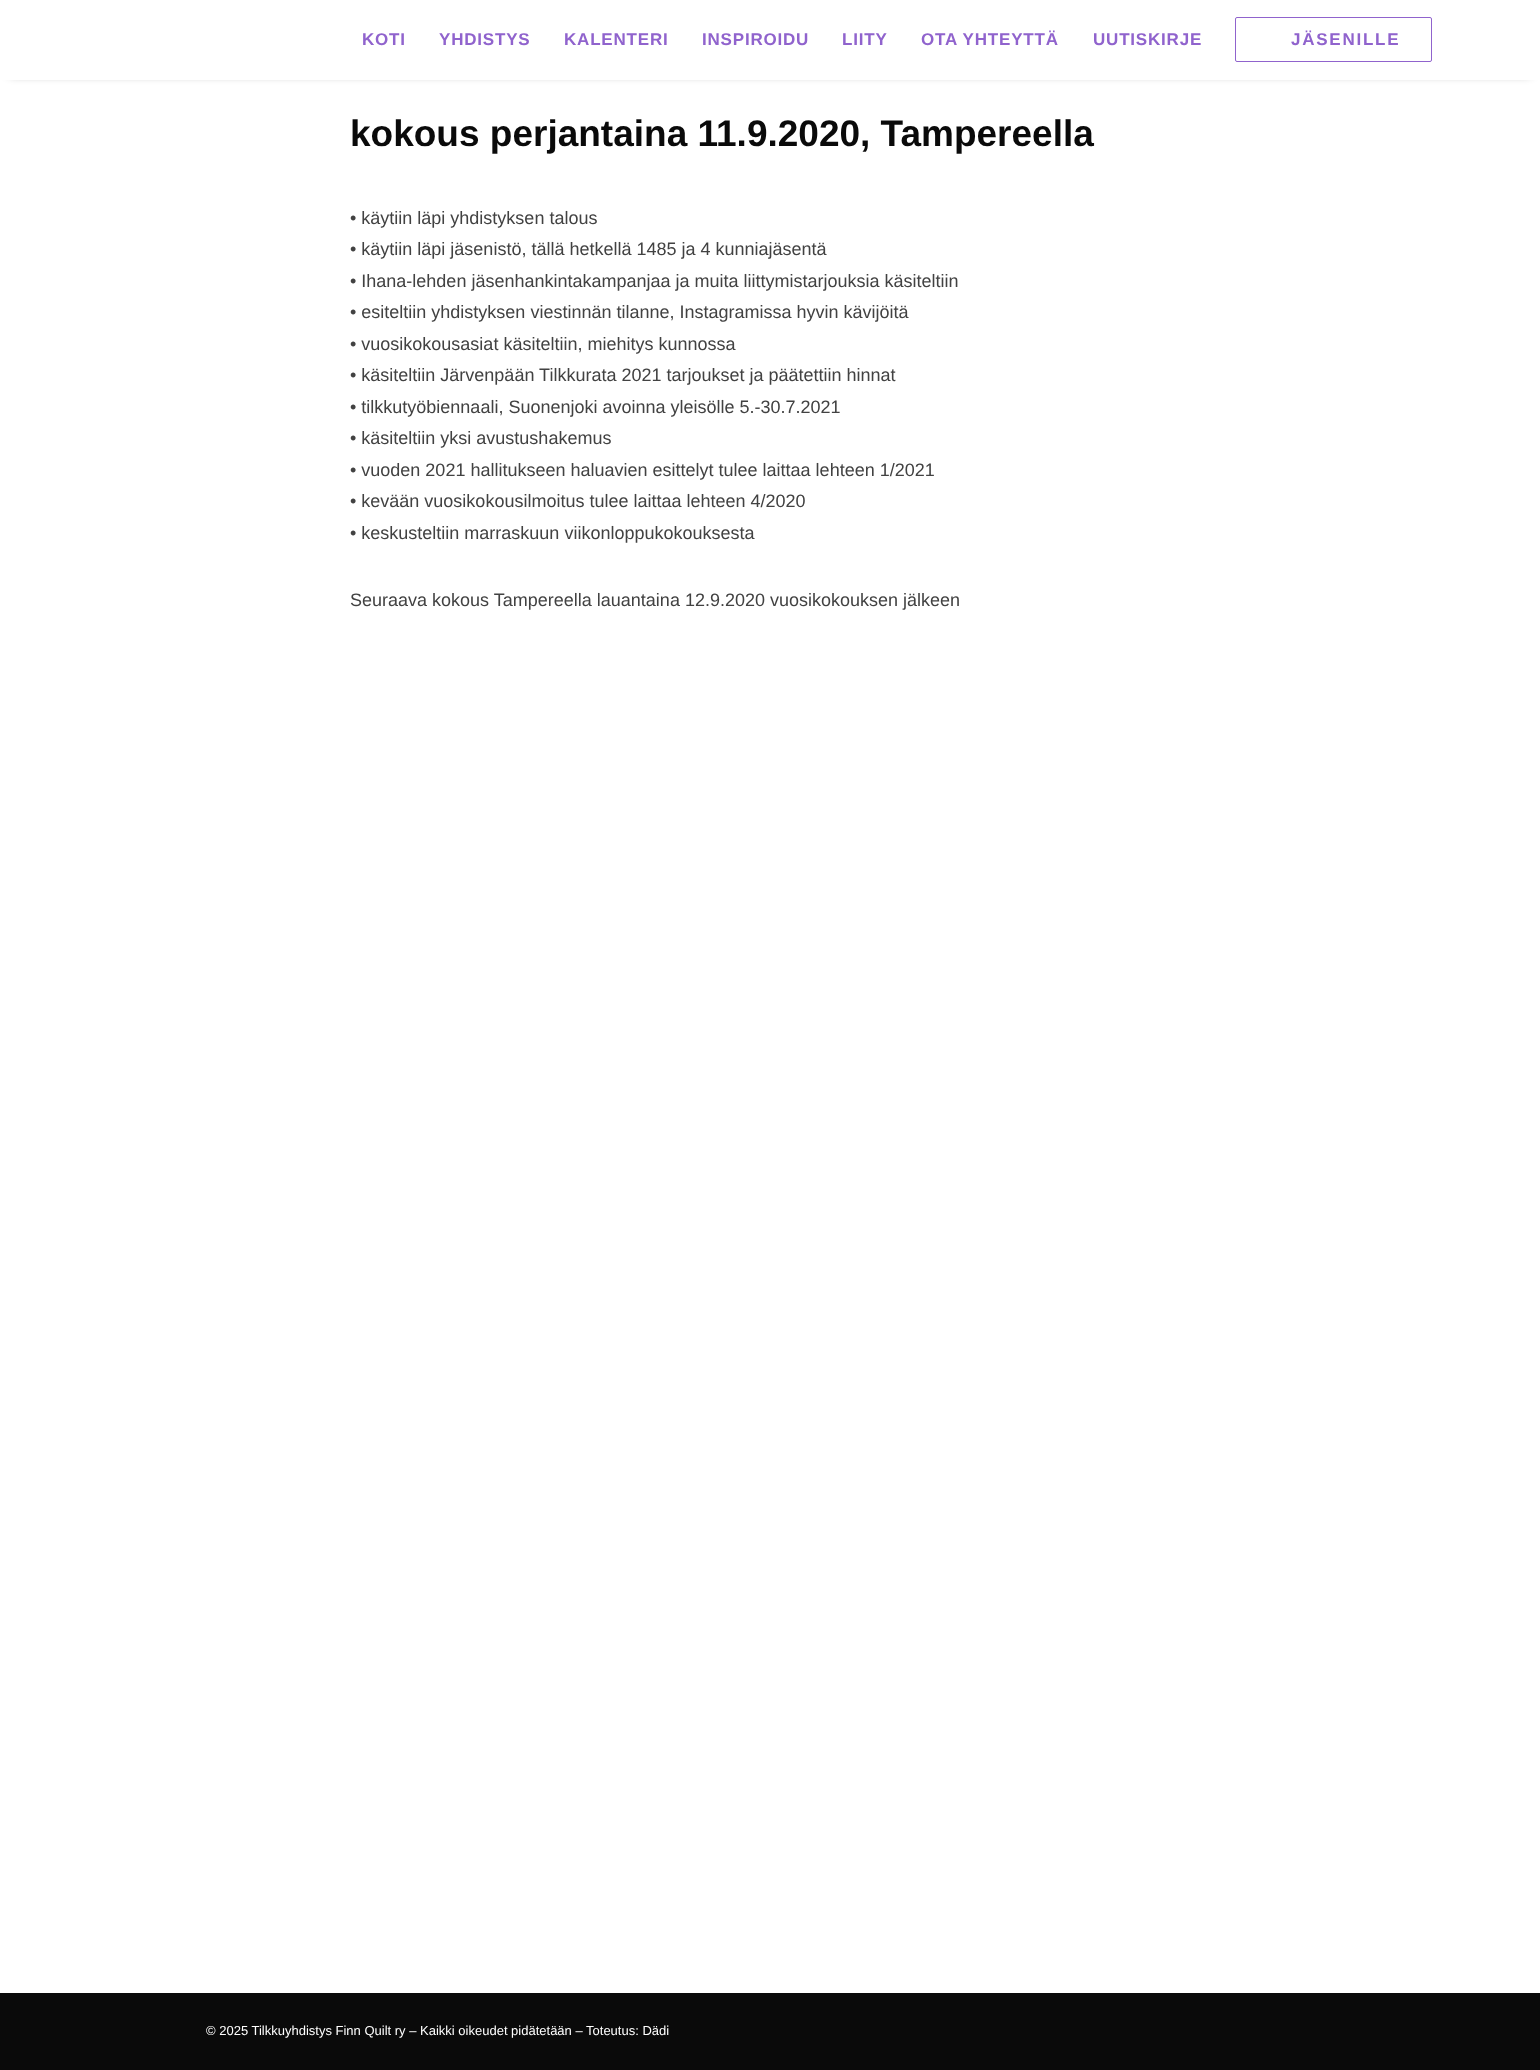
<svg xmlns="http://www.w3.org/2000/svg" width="1540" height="2070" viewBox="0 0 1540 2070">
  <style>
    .t1 { font: bold 17px Liberation Sans; letter-spacing: 0.8px; fill: #9063cd; }
    .t2 { font: bold 17px Liberation Sans; letter-spacing: 1.75px; fill: #9063cd; }
    .t3 { font: bold 37px Liberation Sans; fill: #0a0a0a; }
    .t4 { font: 18px Liberation Sans; fill: #424242; }
    .t5 { font: 13px Liberation Sans; fill: #fff; }
  </style>
  <rect width="100%" height="100%" fill="#fff"/>
  <rect x="10" y="14" width="1520" height="60" fill="#00000099" filter="blur(5px)"/>
  <rect x="0" y="3" width="1540" height="77" fill="#fff"/>
  <text x="362" y="45" class="t1">KOTI</text>
  <text x="439" y="45" class="t1">YHDISTYS</text>
  <text x="564" y="45" class="t1">KALENTERI</text>
  <text x="702" y="45" class="t1">INSPIROIDU</text>
  <text x="842" y="45" class="t1">LIITY</text>
  <text x="921" y="45" class="t1">OTA YHTEYTTÄ</text>
  <text x="1093" y="45" class="t1">UUTISKIRJE</text>
  <rect x="1235.5" y="17.5" width="196" height="44" rx="1.5" fill="none" stroke="#9063cd"/>
  <text x="1291" y="45" class="t2">JÄSENILLE</text>
  <text x="350" y="146" class="t3">kokous perjantaina 11.9.2020, Tampereella</text>
  <text x="350" y="224" class="t4">• käytiin läpi yhdistyksen talous</text>
  <text x="350" y="255" class="t4">• käytiin läpi jäsenistö, tällä hetkellä 1485 ja 4 kunniajäsentä</text>
  <text x="350" y="287" class="t4">• Ihana-lehden jäsenhankintakampanjaa ja muita liittymistarjouksia käsiteltiin</text>
  <text x="350" y="318" class="t4">• esiteltiin yhdistyksen viestinnän tilanne, Instagramissa hyvin kävijöitä</text>
  <text x="350" y="350" class="t4">• vuosikokousasiat käsiteltiin, miehitys kunnossa</text>
  <text x="350" y="381" class="t4">• käsiteltiin Järvenpään Tilkkurata 2021 tarjoukset ja päätettiin hinnat</text>
  <text x="350" y="413" class="t4">• tilkkutyöbiennaali, Suonenjoki avoinna yleisölle 5.-30.7.2021</text>
  <text x="350" y="444" class="t4">• käsiteltiin yksi avustushakemus</text>
  <text x="350" y="476" class="t4">• vuoden 2021 hallitukseen haluavien esittelyt tulee laittaa lehteen 1/2021</text>
  <text x="350" y="507" class="t4">• kevään vuosikokousilmoitus tulee laittaa lehteen 4/2020</text>
  <text x="350" y="539" class="t4">• keskusteltiin marraskuun viikonloppukokouksesta</text>
  <text x="350" y="606" class="t4">Seuraava kokous Tampereella lauantaina 12.9.2020 vuosikokouksen jälkeen</text>
  <rect x="0" y="1993" width="1540" height="77" fill="#0a0a0a"/>
  <text x="206" y="2035" class="t5">© 2025 Tilkkuyhdistys Finn Quilt ry – Kaikki oikeudet pidätetään – Toteutus: Dädi</text>
</svg>
